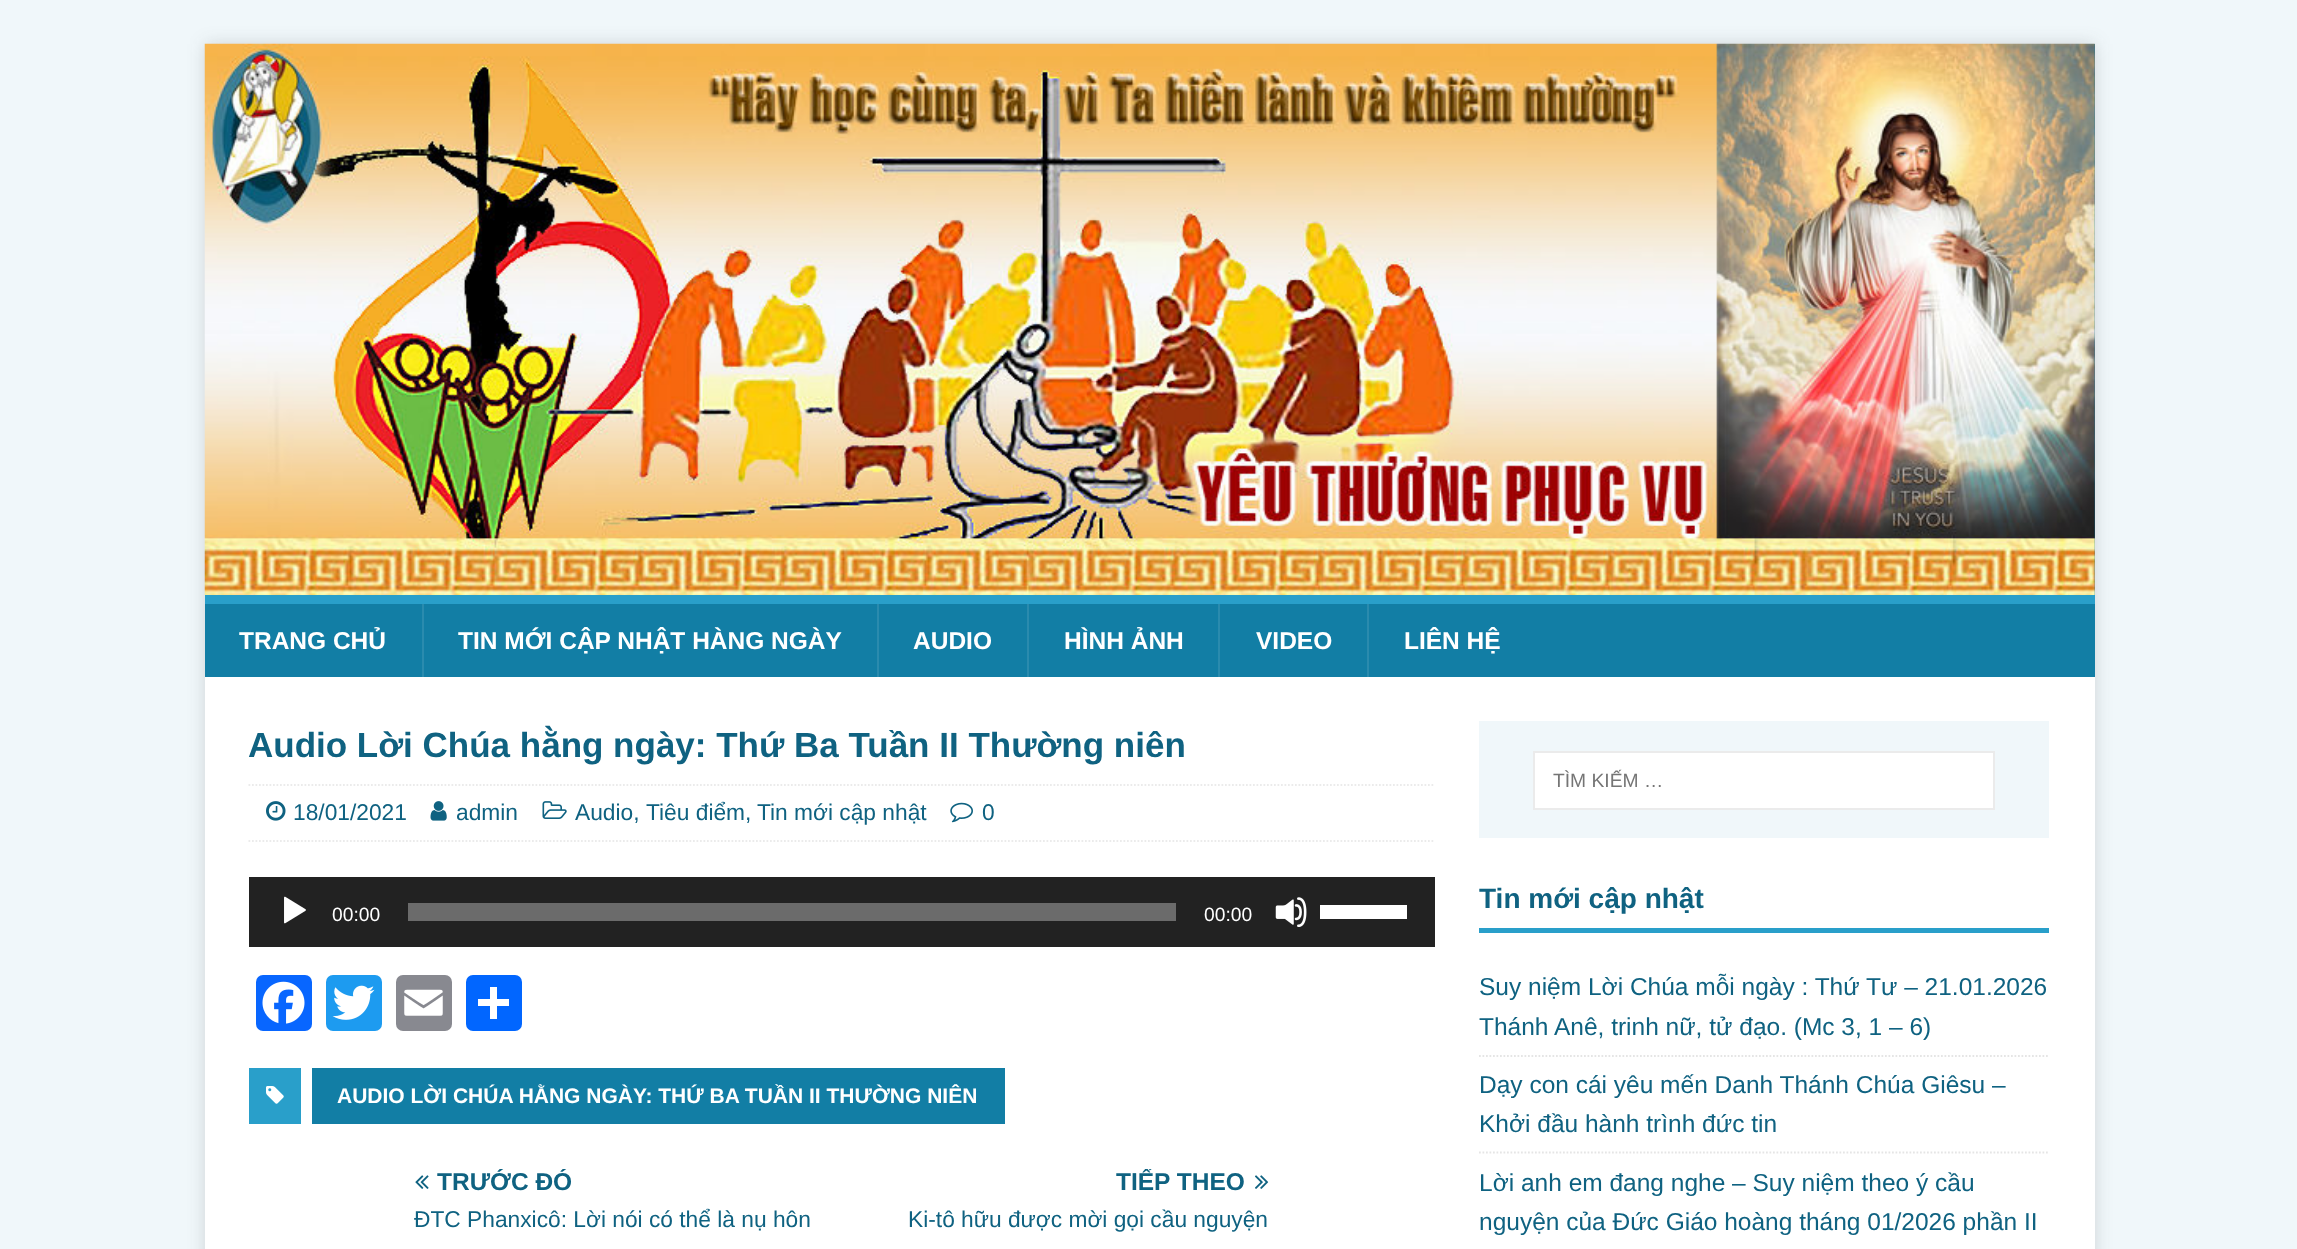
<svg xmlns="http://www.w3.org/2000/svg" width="2297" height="1249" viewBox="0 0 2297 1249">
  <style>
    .t1 { font: bold 24.5px Liberation Sans; fill: #fff; }
    .t2 { font: bold 35px Liberation Sans; fill: #0f6281; }
    .t3 { font: 22.75px Liberation Sans; fill: #0f6281; }
    .t4 { font: 19.25px Liberation Sans; fill: #fff; }
    .t5 { font: bold 21px Liberation Sans; fill: #fff; }
    .t6 { font: bold 24.5px Liberation Sans; fill: #0f6281; }
    .t7 { font: 19.25px Liberation Sans; fill: #757575; }
    .t8 { font: bold 28px Liberation Sans; fill: #0f6281; }
    .t9 { font: 24.5px Liberation Sans; fill: #0f6281; }
  </style>
  <defs>
    <clipPath id="clip1"><rect x="415" y="1169" width="411" height="25"/></clipPath>
    <clipPath id="clip2"><rect x="856" y="1169" width="413" height="25"/></clipPath>
  </defs>
  <rect width="100%" height="100%" fill="#f0f7fa"/>
  <rect x="205" y="44" width="1890" height="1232" fill="#3232322b" filter="blur(9px)"/>
  <rect x="205" y="44" width="1890" height="633" fill="#127ea5"/>
  <image x="204" y="43" width="1891" height="552" href="images/1.png"/>
  <rect x="205" y="595" width="1890" height="9" fill="#299fca"/>
  <text x="239" y="649" class="t1">TRANG CHỦ</text>
  <rect x="422" y="604" width="2" height="73" fill="#2a8bae"/>
  <text x="458" y="649" class="t1">TIN MỚI CẬP NHẬT HÀNG NGÀY</text>
  <rect x="877" y="604" width="2" height="73" fill="#2a8bae"/>
  <text x="913" y="649" class="t1">AUDIO</text>
  <rect x="1027" y="604" width="2" height="73" fill="#2a8bae"/>
  <text x="1064" y="649" class="t1">HÌNH ẢNH</text>
  <rect x="1218" y="604" width="2" height="73" fill="#2a8bae"/>
  <text x="1256" y="649" class="t1">VIDEO</text>
  <rect x="1367" y="604" width="2" height="73" fill="#2a8bae"/>
  <text x="1404" y="649" class="t1">LIÊN HỆ</text>
  <rect x="205" y="677" width="1890" height="572" fill="#fff"/>
  <text x="248" y="757" class="t2">Audio Lời Chúa hằng ngày: Thứ Ba Tuần II Thường niên</text>
  <path d="M248.5 785H1435" fill="none" stroke="#ebebeb" stroke-width="1.8" stroke-dasharray="1.75 1.75"/>
  <path d="M248.5 841H1435" fill="none" stroke="#ebebeb" stroke-width="1.8" stroke-dasharray="1.75 1.75"/>
  <image x="266" y="801" width="20" height="20" href="images/2.png"/>
  <text x="293" y="820" class="t3">18/01/2021</text>
  <image x="430" y="801" width="17" height="20" href="images/3.png"/>
  <text x="456" y="820" class="t3">admin</text>
  <image x="542" y="801" width="25" height="18" href="images/4.png"/>
  <text x="575" y="820" class="t3">Audio,</text>
  <text x="646" y="820" class="t3">Tiêu điểm,</text>
  <text x="757" y="820" class="t3">Tin mới cập nhật</text>
  <image x="950" y="802" width="23" height="21" href="images/5.png"/>
  <text x="982" y="820" class="t3">0</text>
  <rect x="249" y="877" width="1186" height="70" fill="#222"/>
  <image x="284" y="896" width="22" height="28" href="images/6.png"/>
  <text x="332" y="921" class="t4">00:00</text>
  <rect x="408" y="903" width="768" height="18" fill="#6b6b6b"/>
  <text x="1204" y="921" class="t4">00:00</text>
  <image x="1275" y="897" width="32" height="30" href="images/7.png"/>
  <rect x="1320" y="905" width="87" height="14" fill="#fff"/>
  <rect x="256" y="975" width="56" height="56" rx="7" fill="#0866ff"/>
  <image x="262" y="981" width="43" height="43" href="images/8.png"/>
  <rect x="326" y="975" width="56" height="56" rx="7" fill="#1d9bf0"/>
  <image x="332" y="985" width="43" height="35" href="images/9.png"/>
  <rect x="396" y="975" width="56" height="56" rx="7" fill="#888990"/>
  <image x="404" y="989" width="39" height="27" href="images/10.png"/>
  <rect x="466" y="975" width="56" height="56" rx="7" fill="#0166ff"/>
  <rect x="490" y="987" width="7" height="32" fill="#fff"/>
  <rect x="478" y="999" width="31" height="7" fill="#fff"/>
  <rect x="249" y="1068" width="52" height="56" fill="#299fca"/>
  <image x="266" y="1086" width="18" height="18" href="images/11.png"/>
  <rect x="312" y="1068" width="693" height="56" fill="#127ea5"/>
  <text x="337" y="1103" class="t5">AUDIO LỜI CHÚA HẰNG NGÀY: THỨ BA TUẦN II THƯỜNG NIÊN</text>
  <image x="415" y="1175" width="14" height="14" href="images/12.png"/>
  <g clip-path="url(#clip1)">
    <text x="437" y="1190" class="t6">TRƯỚC ĐÓ</text>
  </g>
  <text x="414" y="1227" class="t3">ĐTC Phanxicô: Lời nói có thể là nụ hôn</text>
  <g clip-path="url(#clip2)">
    <text x="1116" y="1190" class="t6">TIẾP THEO</text>
  </g>
  <image x="1255" y="1175" width="14" height="14" href="images/13.png"/>
  <text x="908" y="1227" class="t3">Ki-tô hữu được mời gọi cầu nguyện</text>
  <rect x="1479" y="721" width="570" height="117" fill="#f0f7fa"/>
  <rect x="1534" y="752" width="460" height="57" fill="#fff" stroke="#ebebeb" stroke-width="2"/>
  <text x="1553" y="787" class="t7">TÌM KIẾM …</text>
  <rect x="1479" y="928" width="570" height="5" fill="#299fca"/>
  <text x="1479" y="908" class="t8">Tin mới cập nhật</text>
  <path d="M1479 1056H2049" fill="none" stroke="#e5e5e5" stroke-width="1.8" stroke-dasharray="1.75 1.75"/>
  <text x="1479" y="995" class="t9">Suy niệm Lời Chúa mỗi ngày : Thứ Tư – 21.01.2026</text>
  <text x="1479" y="1035" class="t9">Thánh Anê, trinh nữ, tử đạo. (Mc 3, 1 – 6)</text>
  <path d="M1479 1152.5H2049" fill="none" stroke="#e5e5e5" stroke-width="1.8" stroke-dasharray="1.75 1.75"/>
  <text x="1479" y="1093" class="t9">Dạy con cái yêu mến Danh Thánh Chúa Giêsu –</text>
  <text x="1479" y="1132" class="t9">Khởi đầu hành trình đức tin</text>
  <text x="1479" y="1191" class="t9">Lời anh em đang nghe – Suy niệm theo ý cầu</text>
  <text x="1479" y="1230" class="t9">nguyện của Đức Giáo hoàng tháng 01/2026 phần II</text>
</svg>
